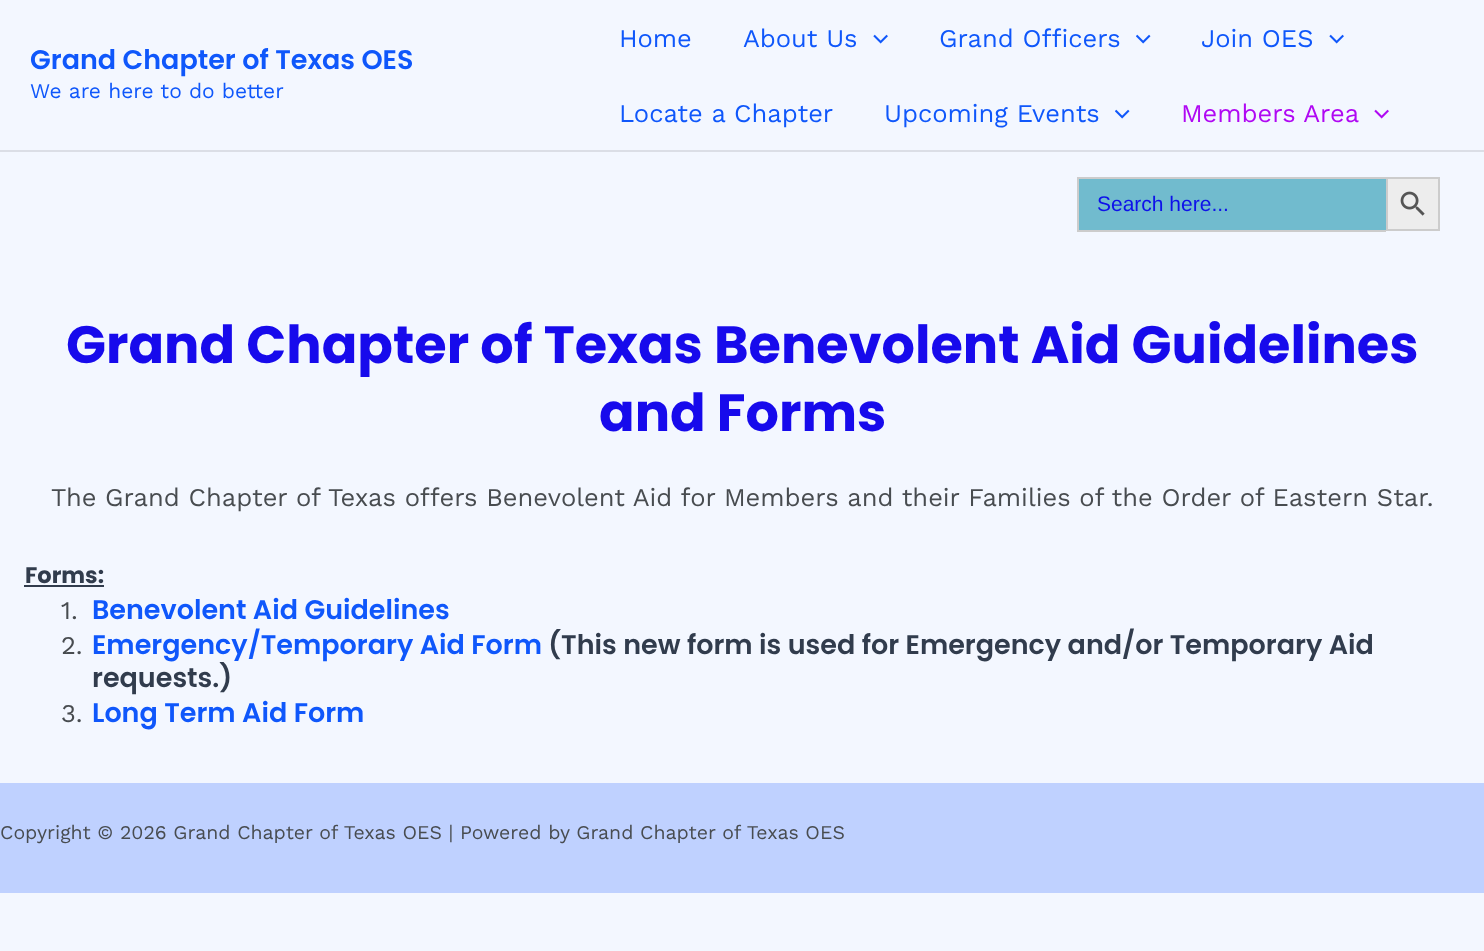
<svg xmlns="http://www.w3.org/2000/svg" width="1484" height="951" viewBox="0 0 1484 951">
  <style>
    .t1 { font: 600 27px Poppins; fill: #0f57fb; }
    .t2 { font: 21px Work Sans; fill: #0f57fb; }
    .t3 { font: 25.5px Work Sans; fill: #0f57fb; }
    .t4 { font: 25.5px Work Sans; fill: #b008f3; }
    .t5 { font: 21px Liberation Sans; fill: #0e11ea; }
    .t6 { font: bold 52.5px Poppins; fill: #170aec; }
    .t7 { font: 25.5px Work Sans; fill: #484c50; }
    .t8 { font: bold 22.5px Poppins; fill: #313c4d; }
    .t9 { font: 600 27px Poppins; fill: #313c4d; }
    .t10 { font: 19.5px Work Sans; fill: #484c50; }
  </style>
  <rect width="100%" height="100%" fill="#f3f7ff"/>
  <rect x="0" y="150" width="1484" height="2" fill="#dbdee6"/>
  <text x="30" y="69" class="t1">Grand Chapter of Texas OES</text>
  <text x="30" y="98" class="t2">We are here to do better</text>
  <text x="619" y="47" class="t3">Home</text>
  <text x="743" y="47" class="t3">About Us</text>
  <image x="873" y="34" width="15" height="10" href="images/1.png"/>
  <text x="939" y="47" class="t3">Grand Officers</text>
  <image x="1136" y="34" width="15" height="10" href="images/2.png"/>
  <text x="1201" y="47" class="t3">Join OES</text>
  <image x="1329" y="34" width="15" height="10" href="images/1.png"/>
  <text x="619" y="122" class="t3">Locate a Chapter</text>
  <text x="884" y="122" class="t3">Upcoming Events</text>
  <image x="1115" y="109" width="15" height="10" href="images/2.png"/>
  <text x="1181" y="122" class="t4">Members Area</text>
  <image x="1374" y="109" width="15" height="10" href="images/3.png"/>
  <rect x="1079" y="179" width="307" height="51" fill="#71bbce"/>
  <rect x="1077" y="177" width="309" height="2" fill="#ccc"/>
  <rect x="1077" y="230" width="309" height="2" fill="#ccc"/>
  <rect x="1077" y="177" width="2" height="54" fill="#ccc"/>
  <text x="1097" y="211" class="t5">Search here...</text>
  <rect x="1387" y="178" width="52" height="52" fill="#ededed" stroke="#ccc" stroke-width="2"/>
  <image x="1400" y="191" width="25" height="25" href="images/4.png"/>
  <text x="66" y="363" class="t6">Grand Chapter of Texas Benevolent Aid Guidelines</text>
  <text x="599" y="431" class="t6">and Forms</text>
  <text x="51" y="506" class="t7">The Grand Chapter of Texas offers Benevolent Aid for Members and their Families of the Order of Eastern Star.</text>
  <text x="25" y="583" class="t8">Forms:</text>
  <rect x="24" y="585" width="80" height="2" fill="#313c4d"/>
  <text x="61" y="619" class="t7">1.</text>
  <text x="92" y="619" class="t1">Benevolent Aid Guidelines</text>
  <text x="61" y="654" class="t7">2.</text>
  <text x="92" y="654" class="t1">Emergency/Temporary Aid Form</text>
  <text x="548" y="654" class="t9">(This new form is used for Emergency and/or Temporary Aid</text>
  <text x="92" y="687" class="t9">requests.)</text>
  <text x="61" y="722" class="t7">3.</text>
  <text x="92" y="722" class="t1">Long Term Aid Form</text>
  <rect x="0" y="783" width="1484" height="110" fill="#bfd1ff"/>
  <text x="0" y="839" class="t10">Copyright © 2026 Grand Chapter of Texas OES | Powered by Grand Chapter of Texas OES</text>
</svg>
